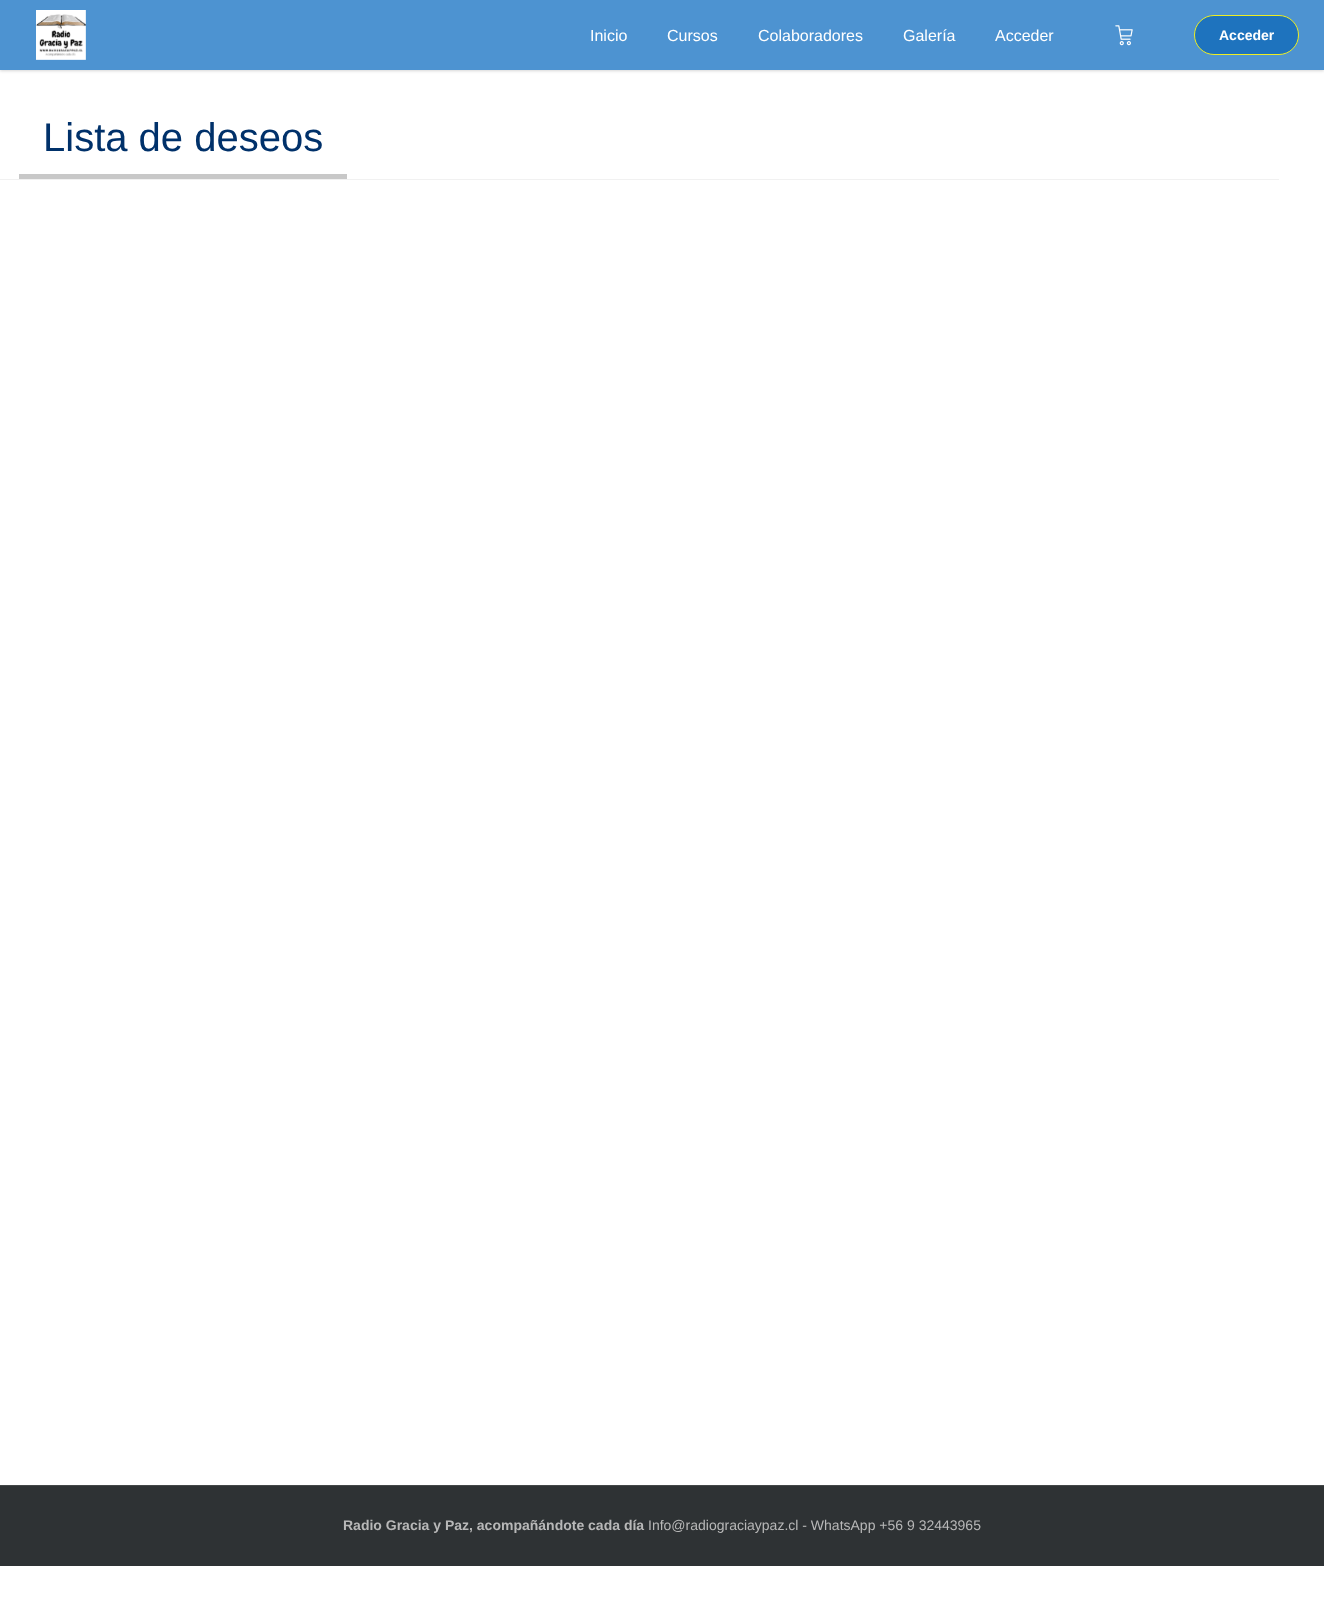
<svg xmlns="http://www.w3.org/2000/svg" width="1324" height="1598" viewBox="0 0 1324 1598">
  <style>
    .t1 { font: 16px Liberation Sans; fill: #fff; }
    .t2 { font: bold 14px Liberation Sans; fill: #fff; }
    .t3 { font: 40px Liberation Sans; fill: #00316a; }
    .t4 { font: bold 14px Liberation Sans; fill: #b8b8b8; }
    .t5 { font: 14px Liberation Sans; fill: #b8b8b8; }
  </style>
  <rect width="100%" height="100%" fill="#fff"/>
  <rect x="0" y="1" width="1324" height="70" fill="#00000029" filter="blur(1.5px)"/>
  <rect x="0" y="0" width="1324" height="70" fill="#4d93d1"/>
  <image x="36" y="10" width="50" height="50" href="images/1.png"/>
  <text x="590" y="41" class="t1">Inicio</text>
  <text x="667" y="41" class="t1">Cursos</text>
  <text x="758" y="41" class="t1">Colaboradores</text>
  <text x="903" y="41" class="t1">Galería</text>
  <text x="995" y="41" class="t1">Acceder</text>
  <image x="1115" y="25" width="18" height="21" href="images/2.png"/>
  <rect x="1194.5" y="15.5" width="104" height="39" rx="19.5" fill="#1e73be" stroke="#ee2"/>
  <text x="1219" y="40" class="t2">Acceder</text>
  <rect x="0" y="179" width="1279" height="1" fill="#f1f1f1"/>
  <rect x="19" y="174" width="328" height="5" fill="#c8c8c8"/>
  <text x="43" y="151" class="t3">Lista de deseos</text>
  <rect x="0" y="1486" width="1324" height="80" fill="#2e3234"/>
  <rect x="0" y="1485" width="1324" height="1" fill="#434748"/>
  <text x="343" y="1530" class="t4">Radio Gracia y Paz, acompañándote cada día</text>
  <text x="648" y="1530" class="t5">Info@radiograciaypaz.cl - WhatsApp +56 9 32443965</text>
</svg>
